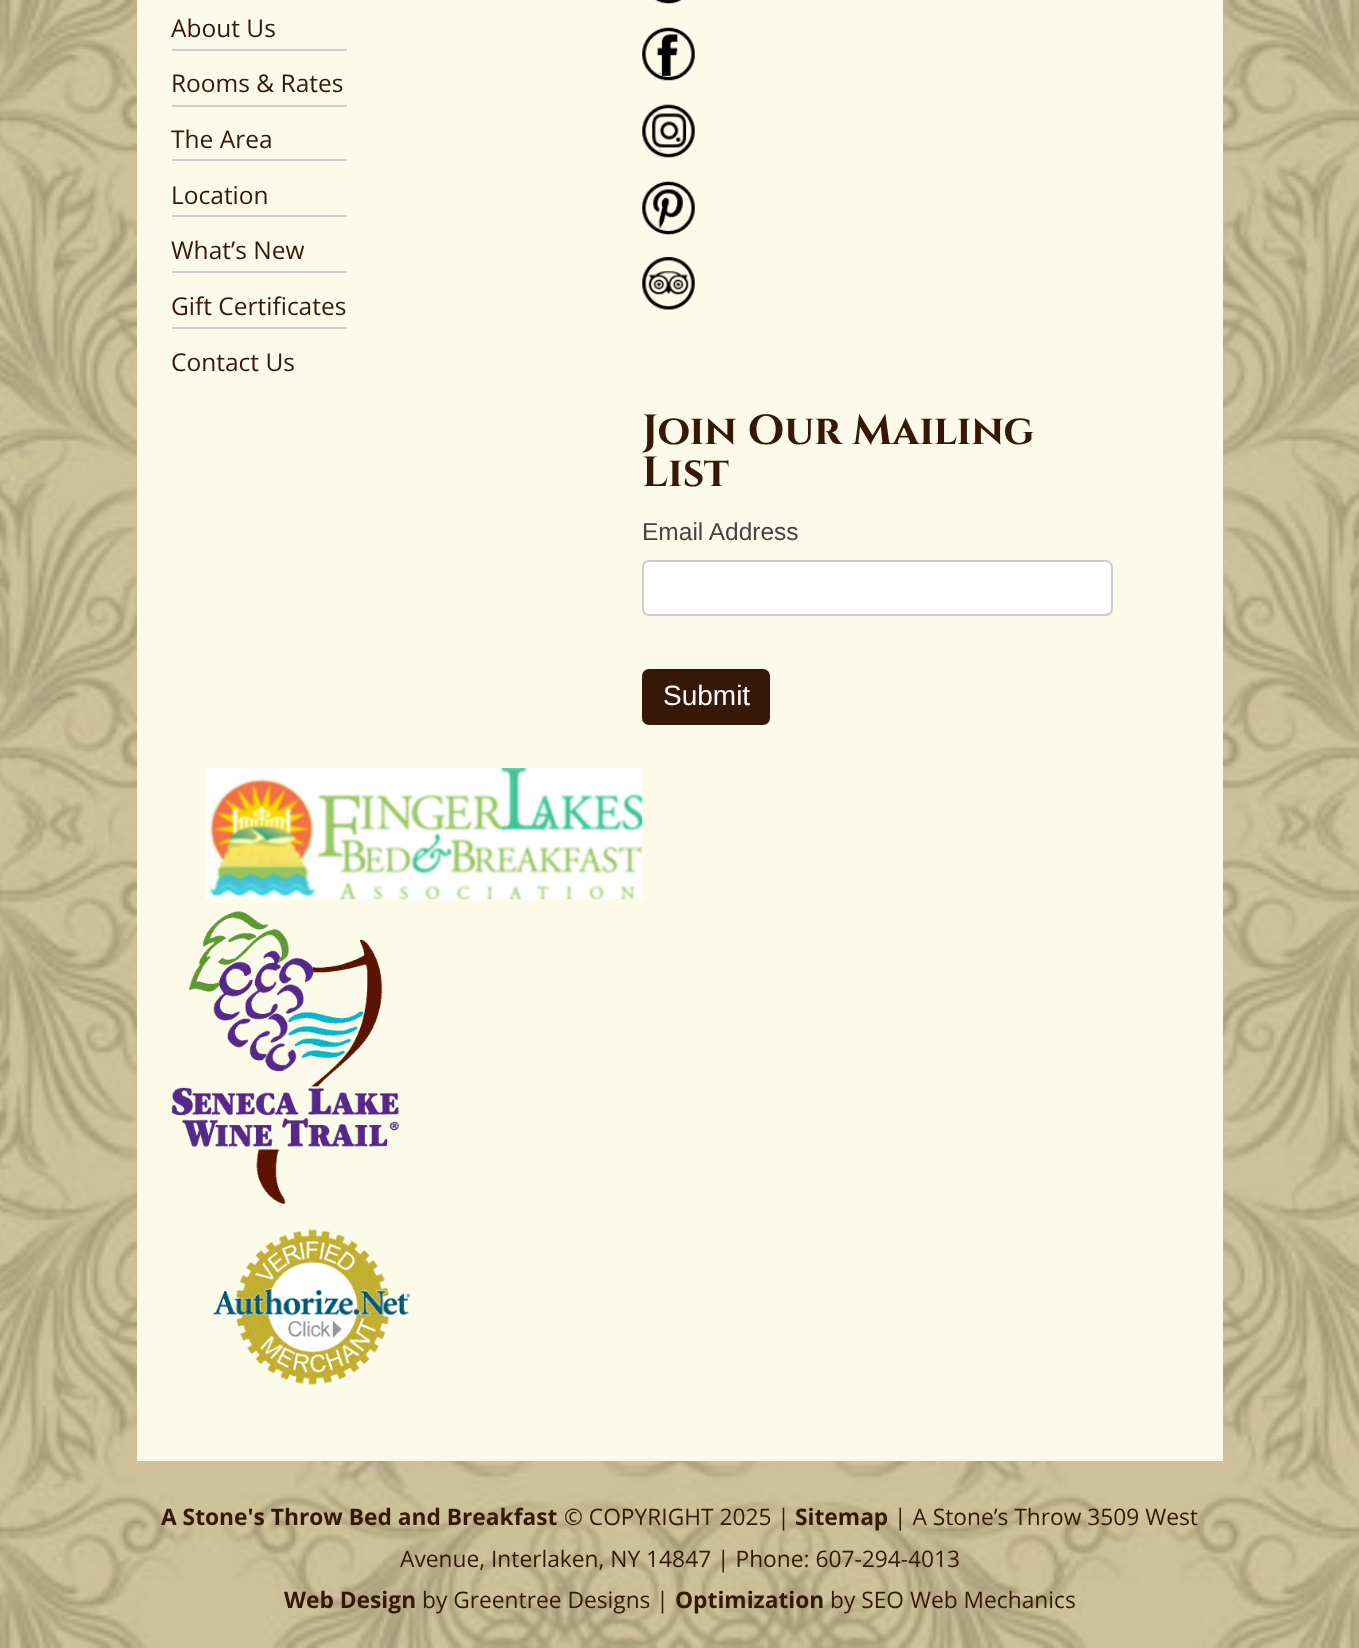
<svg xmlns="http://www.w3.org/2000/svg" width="1359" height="1648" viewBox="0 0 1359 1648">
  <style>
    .t1 { font: 24.5px Open Sans; fill: #351805; }
    .t2 { font: bold 42px Cinzel; fill: #351805; }
    .t3 { font: 24.5px Liberation Sans; fill: #444; }
    .t4 { font: 28px Liberation Sans; fill: #fff; }
    .t5 { font: bold 22.75px Open Sans; fill: #351805; }
    .t6 { font: 22.75px Open Sans; fill: #351805; }
  </style>
  <rect width="100%" height="100%" fill="#fff"/>
  <image x="0" y="0" width="1359" height="1648" href="images/1.png"/>
  <rect x="137" y="0" width="1086" height="1461" fill="#fcfae8"/>
  <rect x="172" y="49" width="175" height="2" fill="#ccc"/>
  <text x="171" y="37" class="t1">About Us</text>
  <rect x="172" y="105" width="175" height="2" fill="#ccc"/>
  <text x="171" y="92" class="t1">Rooms &amp; Rates</text>
  <rect x="172" y="159" width="175" height="2" fill="#ccc"/>
  <text x="171" y="148" class="t1">The Area</text>
  <rect x="172" y="215" width="175" height="2" fill="#ccc"/>
  <text x="171" y="204" class="t1">Location</text>
  <rect x="172" y="271" width="175" height="2" fill="#ccc"/>
  <text x="171" y="259" class="t1">What’s New</text>
  <rect x="172" y="327" width="175" height="2" fill="#ccc"/>
  <text x="171" y="315" class="t1">Gift Certificates</text>
  <text x="171" y="371" class="t1">Contact Us</text>
  <image x="655" y="0" width="27" height="4" href="images/2.png"/>
  <image x="642" y="27" width="53" height="54" href="images/3.png"/>
  <image x="642" y="104" width="53" height="54" href="images/4.png"/>
  <image x="642" y="181" width="53" height="54" href="images/5.png"/>
  <image x="642" y="257" width="53" height="53" href="images/6.png"/>
  <text x="642" y="444" class="t2">Join Our Mailing</text>
  <text x="642" y="486" class="t2">List</text>
  <text x="642" y="540" class="t3">Email Address</text>
  <rect x="643" y="561" width="469" height="54" rx="6" fill="#fff" stroke="#ccc" stroke-width="2"/>
  <rect x="643" y="670" width="126" height="54" rx="6" fill="#351805" stroke="#351805" stroke-width="2"/>
  <text x="663" y="705" class="t4">Submit</text>
  <image x="206" y="768" width="437" height="132" href="images/7.png"/>
  <image x="171" y="911" width="228" height="293" href="images/8.png"/>
  <image x="212" y="1229" width="199" height="156" href="images/9.png"/>
  <text x="161" y="1525" class="t5">A Stone's Throw Bed and Breakfast</text>
  <text x="564" y="1525" class="t6">© COPYRIGHT 2025 |</text>
  <text x="795" y="1525" class="t5">Sitemap</text>
  <text x="894" y="1525" class="t6">| A Stone’s Throw 3509 West</text>
  <text x="400" y="1567" class="t6">Avenue, Interlaken, NY 14847 | Phone: 607-294-4013</text>
  <text x="284" y="1608" class="t5">Web Design</text>
  <text x="422" y="1608" class="t6">by Greentree Designs |</text>
  <text x="675" y="1608" class="t5">Optimization</text>
  <text x="830" y="1608" class="t6">by SEO Web Mechanics</text>
</svg>
